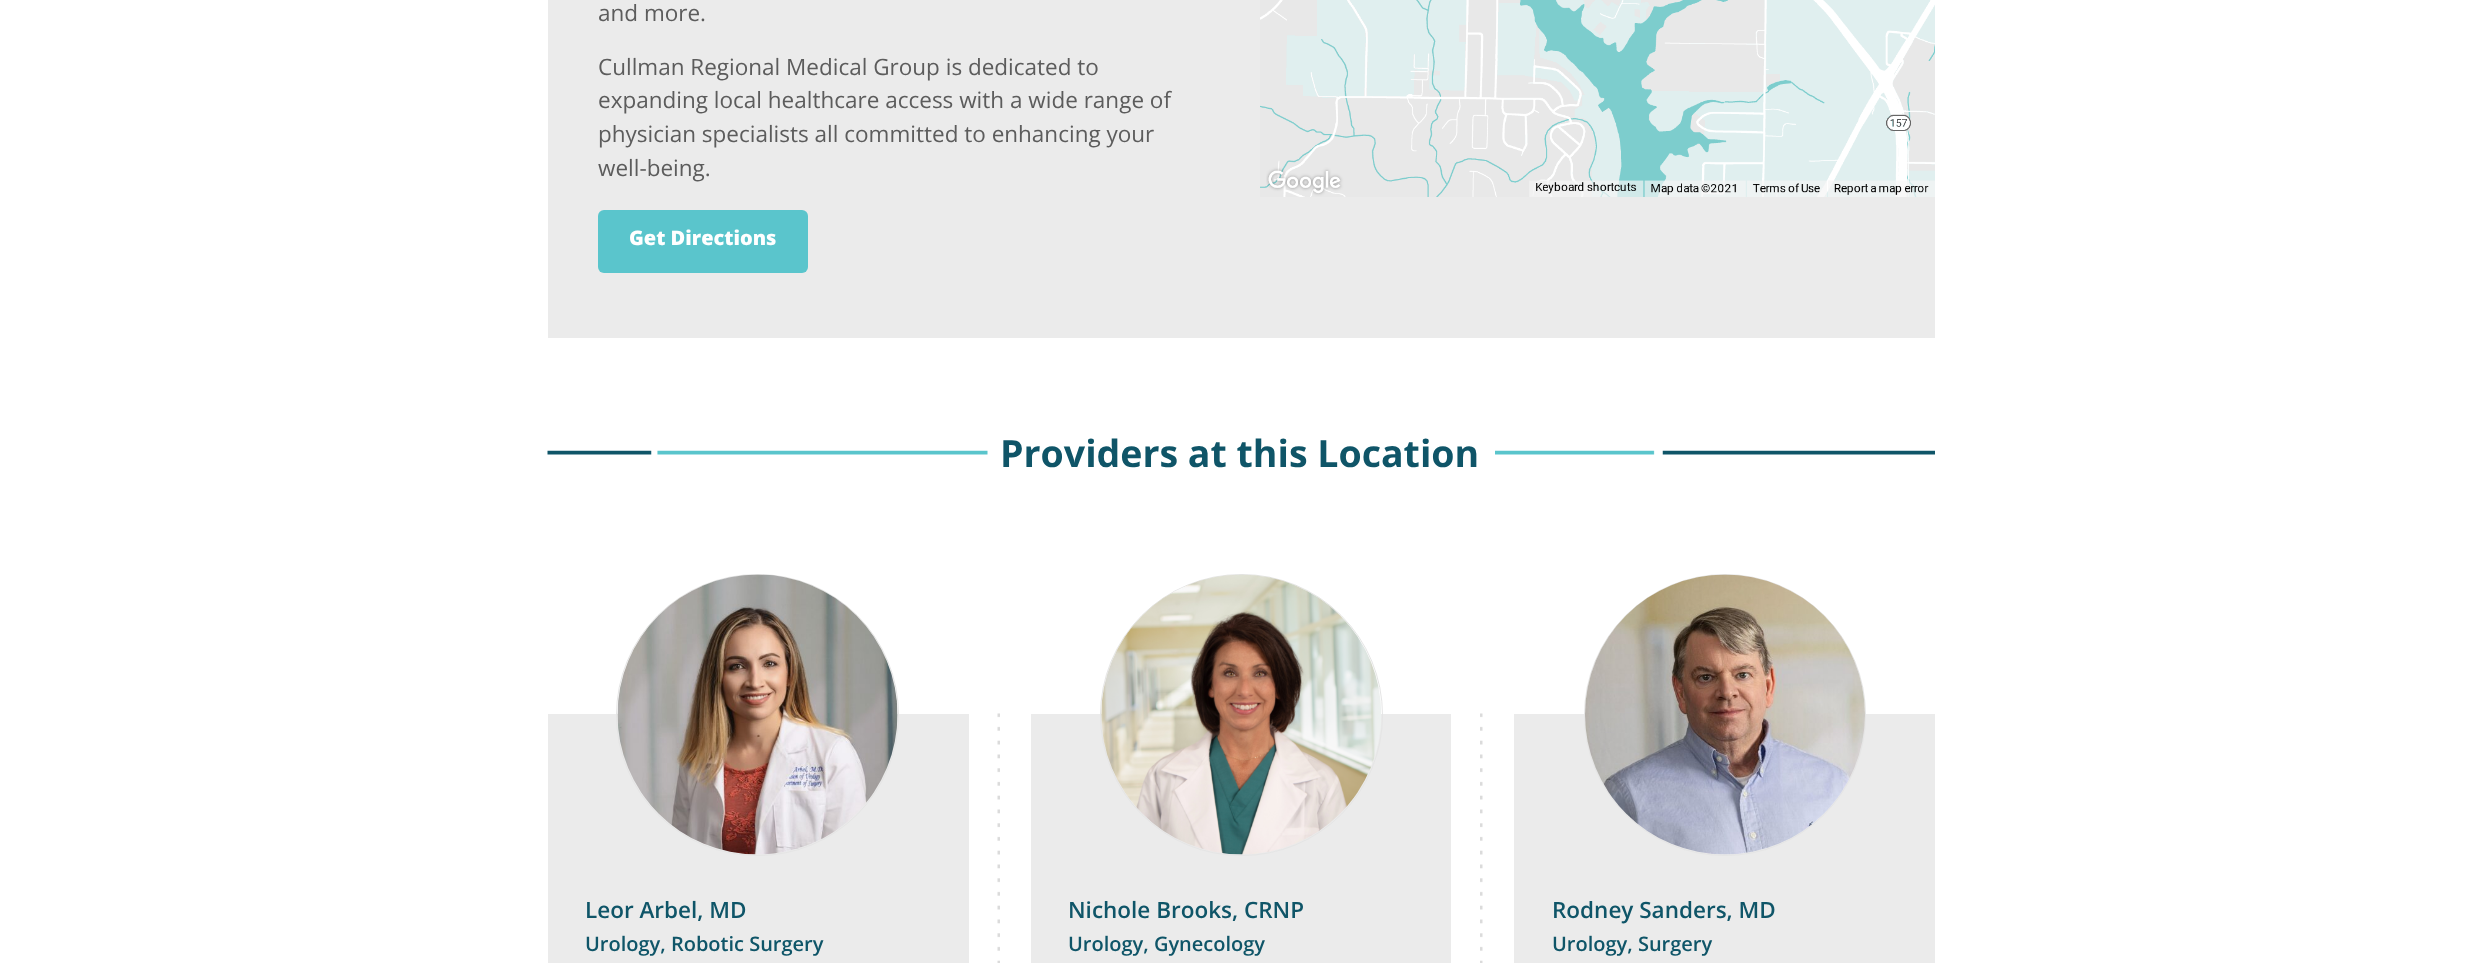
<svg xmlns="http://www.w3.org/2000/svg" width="2482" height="963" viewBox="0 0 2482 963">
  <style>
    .t1 { font: 22.5px Open Sans; fill: #5c5c5c; }
    .t2 { font: 800 20px Open Sans; fill: #fff; }
    .t3 { font: bold 37.5px Open Sans; fill: #0f5568; }
    .t4 { font: 600 22.5px Open Sans; fill: #0f5568; }
    .t5 { font: 600 20px Open Sans; fill: #0f5568; }
  </style>
  <rect width="100%" height="100%" fill="#fff"/>
  <rect x="548" y="0" width="1387" height="338" fill="#ebebeb"/>
  <text x="598" y="21" class="t1">and more.</text>
  <text x="598" y="75" class="t1">Cullman Regional Medical Group is dedicated to</text>
  <text x="598" y="108" class="t1">expanding local healthcare access with a wide range of</text>
  <text x="598" y="142" class="t1">physician specialists all committed to enhancing your</text>
  <text x="598" y="176" class="t1">well-being.</text>
  <rect x="598" y="210" width="210" height="63" rx="6" fill="#5ac5cc"/>
  <text x="629" y="245" class="t2">Get Directions</text>
  <image x="1260" y="0" width="675" height="197" href="images/1.png"/>
  <image x="547" y="450" width="441" height="5" href="images/2.png"/>
  <text x="1000" y="467" class="t3">Providers at this Location</text>
  <image x="1495" y="450" width="440" height="5" href="images/3.png"/>
  <rect x="548" y="714" width="421" height="249" fill="#ebebeb"/>
  <rect x="616.5" y="574.5" width="282" height="281" rx="140.5" fill="none" stroke="#e5e5e5"/>
  <image x="617" y="574" width="281" height="281" href="images/4.png"/>
  <image x="997" y="713" width="3" height="250" href="images/5.png"/>
  <text x="585" y="918" class="t4">Leor Arbel, MD</text>
  <text x="585" y="951" class="t5">Urology, Robotic Surgery</text>
  <rect x="1031" y="714" width="420" height="249" fill="#ebebeb"/>
  <rect x="1100.5" y="574.5" width="282" height="281" rx="140.5" fill="none" stroke="#e5e5e5"/>
  <image x="1101" y="574" width="280" height="281" href="images/6.png"/>
  <image x="1480" y="713" width="3" height="250" href="images/7.png"/>
  <text x="1068" y="918" class="t4">Nichole Brooks, CRNP</text>
  <text x="1068" y="951" class="t5">Urology, Gynecology</text>
  <rect x="1514" y="714" width="421" height="249" fill="#ebebeb"/>
  <circle cx="1725" cy="715" r="140.5" fill="none" stroke="#e5e5e5"/>
  <image x="1585" y="574" width="280" height="281" href="images/8.png"/>
  <text x="1552" y="918" class="t4">Rodney Sanders, MD</text>
  <text x="1552" y="951" class="t5">Urology, Surgery</text>
</svg>
